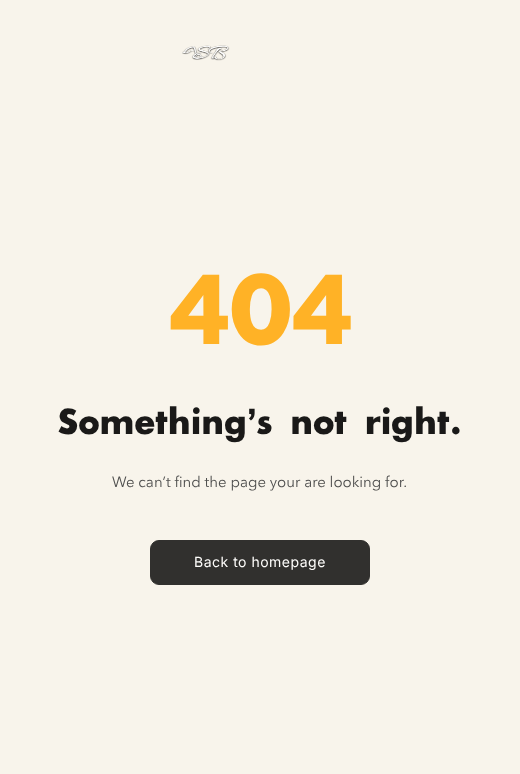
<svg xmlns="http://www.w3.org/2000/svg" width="520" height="774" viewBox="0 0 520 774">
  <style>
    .t1 { font: bold 99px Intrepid; fill: #ffb226; }
    .t2 { font: bold 36px Intrepid; fill: #1a1918; }
    .t3 { font: 15px Avenir Next; fill: #4f4f4e; }
    .t4 { font: 14px Inter; letter-spacing: 0.5px; fill: #fefdfb; }
  </style>
  <rect width="100%" height="100%" fill="#f8f4eb"/>
  <image x="182" y="45" width="48" height="16" href="images/1.png"/>
  <text x="169" y="344" class="t1">404</text>
  <text x="58" y="434" class="t2">Something’s not right.</text>
  <text x="112" y="487" class="t3">We can’t find the page your are looking for.</text>
  <rect x="150.5" y="540.5" width="219" height="44" rx="8.5" fill="#31302e" stroke="#31302e"/>
  <text x="194" y="567" class="t4">Back to homepage</text>
</svg>
